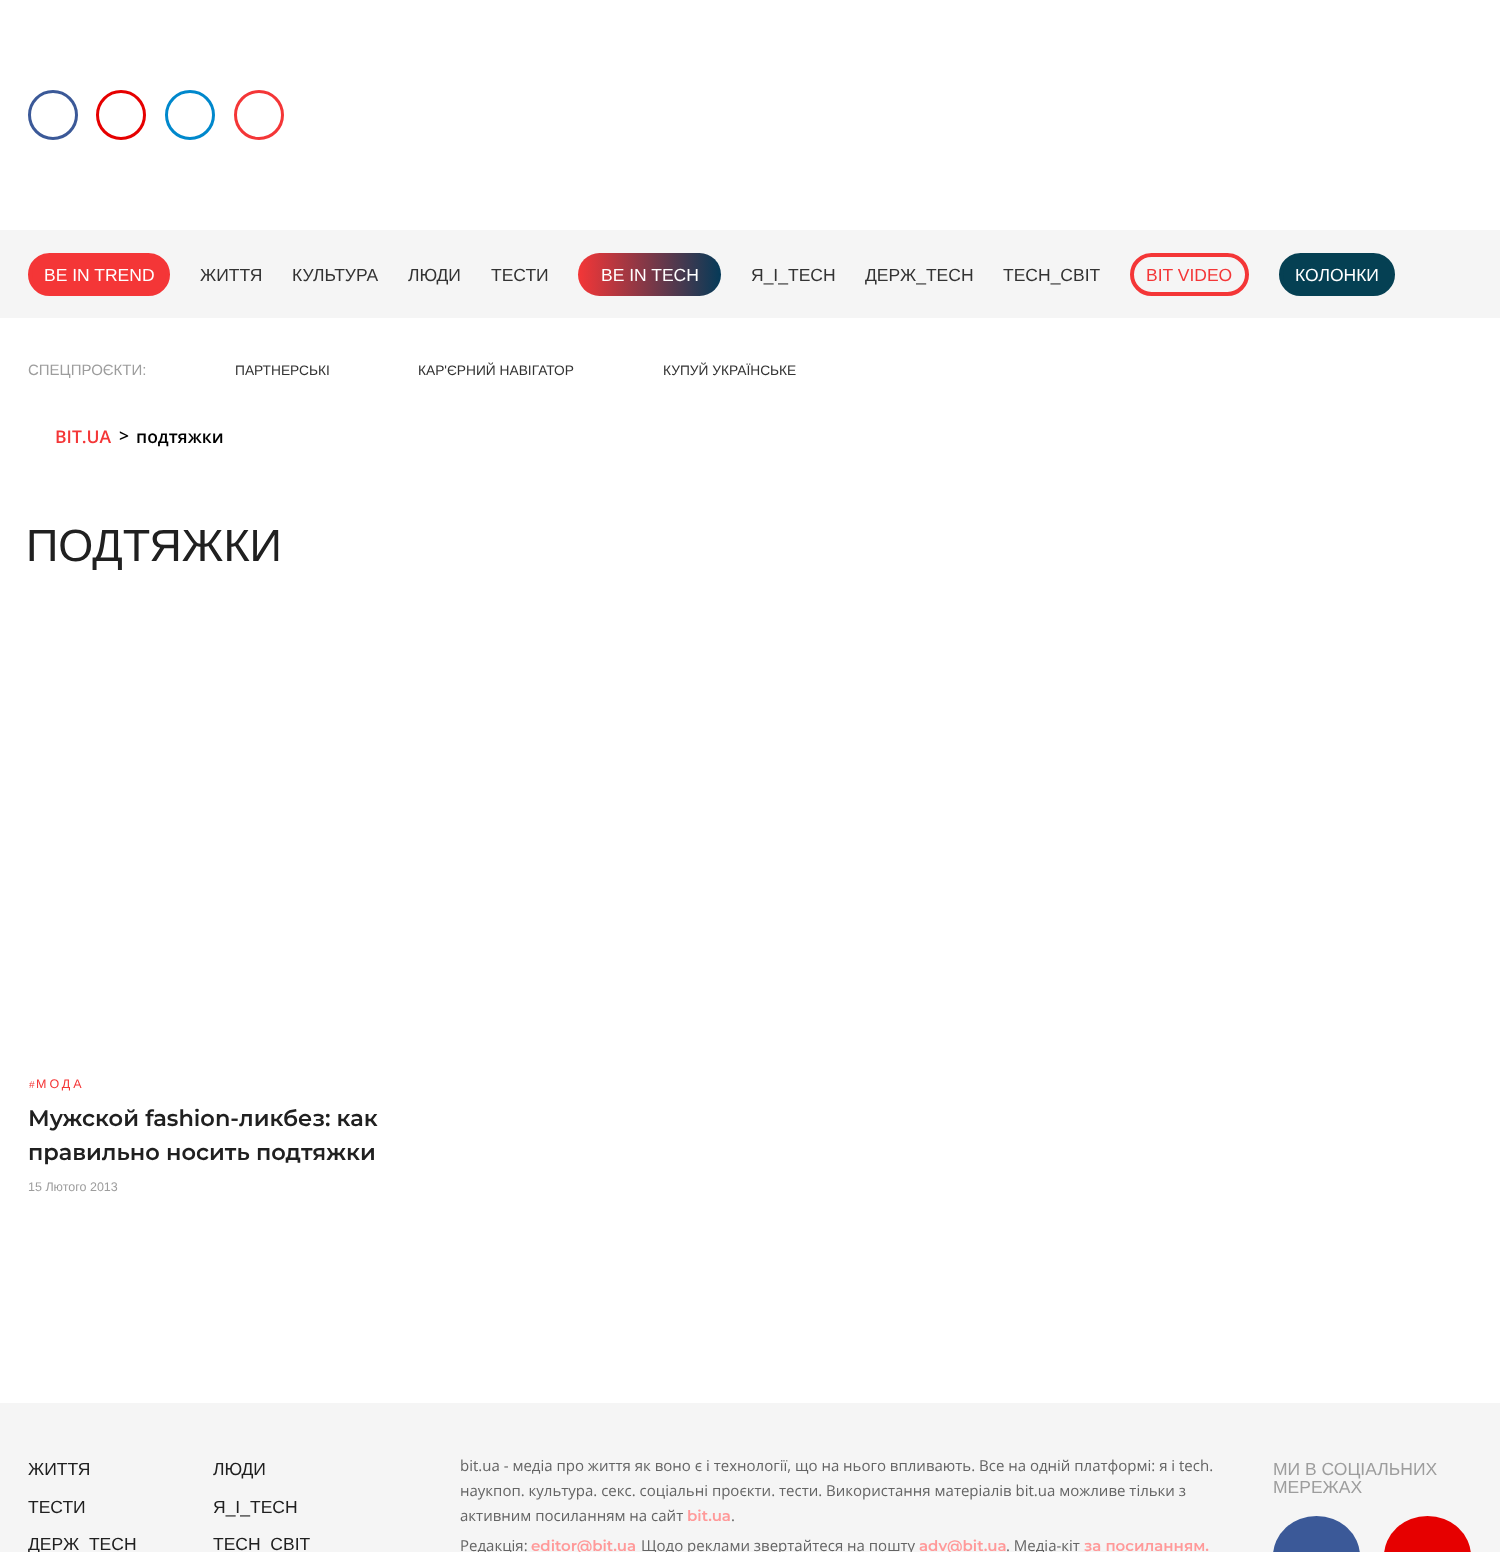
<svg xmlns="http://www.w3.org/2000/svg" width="1500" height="1552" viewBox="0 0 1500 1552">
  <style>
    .t1 { font: 17.5px Liberation Sans; fill: #fff; }
    .t2 { font: 17.5px Liberation Sans; fill: #333; }
    .t3 { font: 17.5px Liberation Sans; fill: #f43637; }
    .t4 { font: 15px Liberation Sans; fill: #9d9d9d; }
    .t5 { font: 13.75px Liberation Sans; fill: #333; }
    .t6 { font: 600 17.5px Open Sans; fill: #f43637; }
    .t7 { font: 600 17.5px Open Sans; fill: #000; }
    .t8 { font: 45px Liberation Sans; fill: #202020; }
    .t9 { font: 10px Liberation Sans; letter-spacing: 3px; fill: #f43637; }
    .t10 { font: 12.5px Liberation Sans; letter-spacing: 3px; fill: #f43637; }
    .t11 { font: 600 22.5px Montserrat; fill: #202020; }
    .t12 { font: 12.5px Liberation Sans; fill: #9d9d9d; }
    .t13 { font: 17.5px Liberation Sans; fill: #202020; }
    .t14 { font: 15px Open Sans; fill: #646464; }
    .t15 { font: 600 15px Montserrat; fill: #f99; }
    .t16 { font: 17.5px Liberation Sans; fill: #9d9d9d; }
  </style>
  <defs>
    <linearGradient id="g1" gradientUnits="userSpaceOnUse" x1="578" y1="274" x2="721" y2="274"><stop offset="0" stop-color="#f43637"/><stop offset="1" stop-color="#053a58"/></linearGradient>
  </defs>
  <rect width="100%" height="100%" fill="#fff"/>
  <circle cx="53" cy="115" r="23.5" fill="none" stroke="#3b5998" stroke-width="3"/>
  <circle cx="121" cy="115" r="23.5" fill="none" stroke="#e60000" stroke-width="3"/>
  <circle cx="190" cy="115" r="23.5" fill="none" stroke="#08c" stroke-width="3"/>
  <circle cx="259" cy="115" r="23.5" fill="none" stroke="#f43637" stroke-width="3"/>
  <rect x="0" y="230" width="1500" height="88" fill="#f5f5f5"/>
  <rect x="30" y="255" width="138" height="39" rx="19.5" fill="#f43637" stroke="#f43637" stroke-width="4"/>
  <text x="44" y="281" class="t1">BE IN TREND</text>
  <text x="200" y="281" class="t2">ЖИТТЯ</text>
  <text x="292" y="281" class="t2">КУЛЬТУРА</text>
  <text x="408" y="281" class="t2">ЛЮДИ</text>
  <text x="491" y="281" class="t2">ТЕСТИ</text>
  <rect x="578" y="253" width="143" height="43" rx="21.5" fill="url(#g1)"/>
  <text x="601" y="281" class="t1">BE IN TECH</text>
  <text x="751" y="281" class="t2">Я_І_TECH</text>
  <text x="865" y="281" class="t2">ДЕРЖ_TECH</text>
  <text x="1003" y="281" class="t2">TECH_СВІТ</text>
  <rect x="1132" y="255" width="115" height="39" rx="19.5" fill="none" stroke="#f43637" stroke-width="4"/>
  <text x="1146" y="281" class="t3">BIT VIDEO</text>
  <rect x="1281" y="255" width="112" height="39" rx="19.5" fill="#054053" stroke="#054053" stroke-width="4"/>
  <text x="1295" y="281" class="t1">КОЛОНКИ</text>
  <text x="28" y="375" class="t4">СПЕЦПРОЄКТИ:</text>
  <text x="235" y="375" class="t5">ПАРТНЕРСЬКІ</text>
  <text x="418" y="375" class="t5">КАР'ЄРНИЙ НАВІГАТОР</text>
  <text x="663" y="375" class="t5">КУПУЙ УКРАЇНСЬКЕ</text>
  <text x="55" y="443" class="t6">BIT.UA</text>
  <text x="119" y="442" class="t7">&gt;</text>
  <text x="136" y="443" class="t7">подтяжки</text>
  <text x="26" y="561" class="t8">ПОДТЯЖКИ</text>
  <text x="29" y="1088" class="t9">#</text>
  <text x="36" y="1088" class="t10">МОДА</text>
  <text x="28" y="1126" class="t11">Мужской fashion-ликбез: как</text>
  <text x="28" y="1160" class="t11">правильно носить подтяжки</text>
  <text x="28" y="1191" class="t12">15 Лютого 2013</text>
  <rect x="0" y="1403" width="1500" height="149" fill="#f5f5f5"/>
  <text x="28" y="1475" class="t13">ЖИТТЯ</text>
  <text x="213" y="1475" class="t13">ЛЮДИ</text>
  <text x="28" y="1513" class="t13">ТЕСТИ</text>
  <text x="213" y="1513" class="t13">Я_І_TECH</text>
  <text x="28" y="1550" class="t13">ДЕРЖ_TECH</text>
  <text x="213" y="1550" class="t13">TECH_СВІТ</text>
  <text x="460" y="1471" class="t14">bit.ua - медіа про життя як воно є і технології, що на нього впливають. Все на одній платформі: я і tech.</text>
  <text x="460" y="1496" class="t14">наукпоп. культура. секс. соціальні проєкти. тести. Використання матеріалів bit.ua можливе тільки з</text>
  <text x="460" y="1521" class="t14">активним посиланням на сайт</text>
  <text x="687" y="1521" class="t15">bit.ua</text>
  <text x="731" y="1521" class="t14">.</text>
  <text x="460" y="1551" class="t14">Редакція:</text>
  <text x="531" y="1551" class="t15">editor@bit.ua</text>
  <text x="641" y="1551" class="t14">Щодо реклами звертайтеся на пошту</text>
  <text x="919" y="1551" class="t15">adv@bit.ua</text>
  <text x="1006" y="1551" class="t14">. Медіа-кіт</text>
  <text x="1084" y="1551" class="t15">за посиланням.</text>
  <text x="1273" y="1475" class="t16">МИ В СОЦІАЛЬНИХ</text>
  <text x="1273" y="1493" class="t16">МЕРЕЖАХ</text>
  <rect x="1273" y="1516" width="87" height="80" rx="43.5" fill="#3b5998"/>
  <rect x="1384" y="1516" width="87" height="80" rx="43.5" fill="#e60000"/>
</svg>
